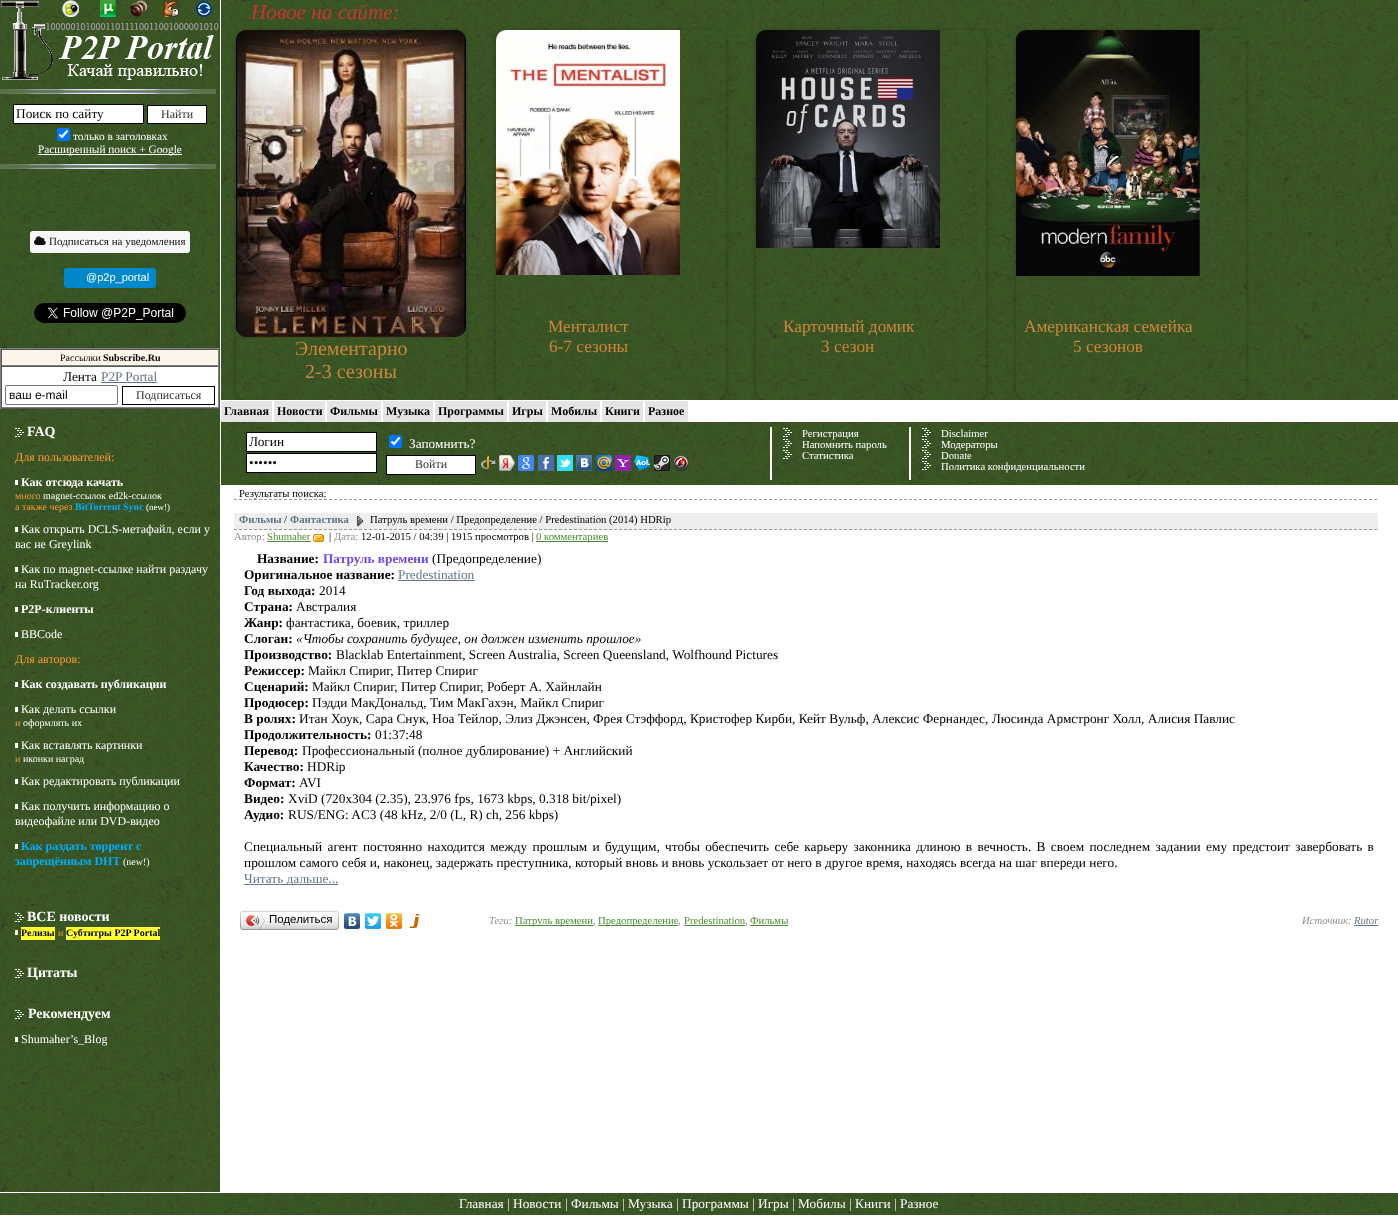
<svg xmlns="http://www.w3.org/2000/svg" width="1398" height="1227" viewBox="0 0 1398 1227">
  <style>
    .t1 { font: 13.33px Liberation Serif; fill: #000; }
    .t2 { font: 12px Liberation Serif; fill: #333; }
    .t3 { font: 11.3px Liberation Serif; fill: #fff; }
    .t4 { font: 11px Liberation Serif; fill: #111; }
    .t5 { font: 11px Liberation Sans; fill: #fff; }
    .t6 { font: 10px Liberation Serif; fill: #000; }
    .t7 { font: bold 10px Liberation Serif; fill: #000; }
    .t8 { font: 13.33px Liberation Serif; fill: #647386; }
    .t9 { font: 12px Liberation Sans; fill: #000; }
    .t10 { font: bold 14px Liberation Serif; fill: #fff; }
    .t11 { font: 12px Liberation Serif; fill: #f93; }
    .t12 { font: bold 12px Liberation Serif; fill: #fff; }
    .t13 { font: 10px Liberation Serif; fill: #f93; }
    .t14 { font: 10px Liberation Serif; fill: #fff; }
    .t15 { font: bold 10px Liberation Serif; fill: #00afff; }
    .t16 { font: 9px Liberation Serif; fill: #fff; }
    .t17 { font: 12px Liberation Serif; fill: #fff; }
    .t18 { font: bold 12px Liberation Serif; fill: #00afff; }
    .t19 { font: italic 21.25px Liberation Serif; fill: #c33; }
    .t20 { font: 17.25px Liberation Serif; fill: #cd853f; }
    .t21 { font: 20px Liberation Serif; fill: #cd853f; }
    .t22 { font: bold 12px Liberation Serif; fill: #000; }
    .t23 { font: 13.33px Liberation Serif; fill: #fff; }
    .t24 { font: 10.7px Liberation Serif; fill: #fff; }
    .t25 { font: 10.7px Liberation Serif; fill: #000; }
    .t26 { font: bold 10.7px Liberation Serif; fill: #647386; }
    .t27 { font: 10.7px Liberation Serif; fill: #8d8d8d; }
    .t28 { font: 10.7px Liberation Serif; fill: #4d8b34; }
    .t29 { font: bold 13.33px Liberation Serif; fill: #000; }
    .t30 { font: bold 13.33px Liberation Serif; fill: #704ae6; }
    .t31 { font: italic 13.33px Liberation Serif; fill: #000; }
    .t32 { font: 11.5px Liberation Sans; fill: #000; }
    .t33 { font: italic 10.7px Liberation Serif; fill: #8d8d8d; }
    .t34 { font: italic 10.7px Liberation Serif; fill: #647386; }
    .t35 { font: 13.33px Liberation Serif; fill: #eaeaea; }
  </style>
  <defs>
    <clipPath id="clip1"><rect x="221" y="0" width="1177" height="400"/></clipPath>
    <clipPath id="clip2"><path d="M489 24H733V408H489ZM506 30H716C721.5 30 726 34.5 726 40V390C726 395.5 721.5 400 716 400H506C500.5 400 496 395.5 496 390V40C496 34.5 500.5 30 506 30Z" clip-rule="evenodd"/></clipPath>
    <clipPath id="clip3"><path d="M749 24H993V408H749ZM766 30H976C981.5 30 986 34.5 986 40V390C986 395.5 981.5 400 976 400H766C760.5 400 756 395.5 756 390V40C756 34.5 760.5 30 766 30Z" clip-rule="evenodd"/></clipPath>
    <clipPath id="clip4"><path d="M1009 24H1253V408H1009ZM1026 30H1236C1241.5 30 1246 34.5 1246 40V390C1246 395.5 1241.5 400 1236 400H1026C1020.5 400 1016 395.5 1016 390V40C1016 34.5 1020.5 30 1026 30Z" clip-rule="evenodd"/></clipPath>
    <clipPath id="clip5"><path d="M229 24H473V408H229ZM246 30H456C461.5 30 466 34.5 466 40V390C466 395.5 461.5 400 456 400H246C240.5 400 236 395.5 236 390V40C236 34.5 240.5 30 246 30Z" clip-rule="evenodd"/></clipPath>
  </defs>
  <rect width="100%" height="100%" fill="#fff"/>
  <rect x="0" y="0" width="220" height="1192" fill="#3e6123"/>
  <image x="0" y="0" width="220" height="1192" href="images/1.png"/>
  <image x="0" y="89" width="216" height="5" href="images/2.png"/>
  <image x="0" y="0" width="219" height="80" href="images/3.png"/>
  <image x="0" y="164" width="216" height="5" href="images/2.png"/>
  <rect x="13.5" y="104.5" width="130" height="19" fill="#fff" stroke="#000"/>
  <text x="16" y="118" class="t1">Поиск по сайту</text>
  <rect x="147.5" y="105.5" width="59" height="18" fill="#fff" stroke="#000"/>
  <text x="161" y="118" class="t2">Найти</text>
  <rect x="57" y="128" width="13" height="13" rx="2" fill="#0075ff"/>
  <path d="M59.5 134.5L62 137L67.5 130.5" fill="none" stroke="#fff" stroke-width="2.1"/>
  <text x="73" y="140" class="t3">только в заголовках</text>
  <rect x="38" y="154" width="144" height="1" fill="#fff"/>
  <text x="38" y="153" class="t3">Расширенный поиск + Google</text>
  <rect x="0" y="169" width="220" height="179" fill="#3e6123"/>
  <image x="0" y="169" width="220" height="179" href="images/4.png"/>
  <rect x="30" y="231" width="160" height="22" rx="3" fill="#f7f7f7"/>
  <image x="34" y="236" width="12" height="9" href="images/5.png"/>
  <text x="49" y="245" class="t4">Подписаться на уведомления</text>
  <rect x="64" y="268" width="92" height="20" rx="3" fill="#08c"/>
  <text x="86" y="281" class="t5">@p2p_portal</text>
  <image x="34" y="303" width="152" height="20" href="images/6.png"/>
  <rect x="0" y="348" width="220" height="1" fill="#808080"/>
  <rect x="219" y="348" width="1" height="61" fill="#555"/>
  <rect x="0" y="408" width="220" height="1" fill="#555"/>
  <rect x="0" y="348" width="1" height="61" fill="#808080"/>
  <rect x="2" y="350" width="216" height="15" fill="#fcf5e9"/>
  <rect x="1" y="349" width="218" height="1" fill="#555"/>
  <rect x="218" y="349" width="1" height="17" fill="#808080"/>
  <rect x="1" y="365" width="218" height="1" fill="#808080"/>
  <rect x="1" y="349" width="1" height="17" fill="#555"/>
  <text x="60" y="361" class="t6">Рассылки</text>
  <text x="103" y="361" class="t7">Subscribe.Ru</text>
  <rect x="2" y="367" width="216" height="40" fill="#fff"/>
  <rect x="1" y="366" width="218" height="1" fill="#555"/>
  <rect x="218" y="366" width="1" height="42" fill="#808080"/>
  <rect x="1" y="407" width="218" height="1" fill="#808080"/>
  <rect x="1" y="366" width="1" height="42" fill="#555"/>
  <text x="63" y="381" class="t1">Лента</text>
  <text x="101" y="381" class="t8">P2P Portal</text>
  <rect x="101" y="382" width="56" height="1" fill="#647386"/>
  <rect x="5.5" y="385.5" width="112" height="19" rx="1.5" fill="none" stroke="#767676"/>
  <text x="9" y="399" class="t9">ваш e-mail</text>
  <rect x="122.5" y="386.5" width="92" height="18" fill="none" stroke="#000"/>
  <text x="136" y="399" class="t2">Подписаться</text>
  <rect x="0" y="409" width="220" height="683" fill="#3e6123"/>
  <image x="0" y="409" width="220" height="683" href="images/7.png"/>
  <rect x="10" y="419" width="210" height="663" fill="#3e6123"/>
  <image x="10" y="419" width="210" height="26" href="images/8.png"/>
  <image x="15" y="428" width="9" height="9" href="images/9.png"/>
  <text x="27" y="436" class="t10">FAQ</text>
  <image x="10" y="445" width="210" height="25" href="images/10.png"/>
  <text x="15" y="461" class="t11">Для пользователей:</text>
  <image x="10" y="470" width="210" height="47" href="images/11.png"/>
  <rect x="15" y="480" width="3" height="5" fill="#fff"/>
  <text x="21" y="486" class="t12">Как отсюда качать</text>
  <text x="15" y="499" class="t13">много</text>
  <text x="43" y="499" class="t14">magnet-ссылок ed2k-ссылок</text>
  <text x="15" y="510" class="t13">а также через</text>
  <text x="75" y="510" class="t15">BitTorrent Sync</text>
  <text x="146" y="510" class="t16">(new!)</text>
  <image x="10" y="517" width="210" height="40" href="images/12.png"/>
  <rect x="15" y="527" width="3" height="5" fill="#fff"/>
  <text x="21" y="533" class="t17">Как открыть DCLS-метафайл, если у</text>
  <text x="15" y="548" class="t17">вас не Greylink</text>
  <image x="10" y="557" width="210" height="40" href="images/12.png"/>
  <rect x="15" y="567" width="3" height="5" fill="#fff"/>
  <text x="21" y="573" class="t17">Как по magnet-ссылке найти раздачу</text>
  <text x="15" y="588" class="t17">на RuTracker.org</text>
  <image x="10" y="597" width="210" height="25" href="images/10.png"/>
  <rect x="15" y="607" width="3" height="5" fill="#fff"/>
  <text x="21" y="613" class="t12">P2P-клиенты</text>
  <image x="10" y="622" width="210" height="25" href="images/10.png"/>
  <rect x="15" y="632" width="3" height="5" fill="#fff"/>
  <text x="21" y="638" class="t17">BBCode</text>
  <image x="10" y="647" width="210" height="25" href="images/10.png"/>
  <text x="15" y="663" class="t11">Для авторов:</text>
  <image x="10" y="672" width="210" height="25" href="images/10.png"/>
  <rect x="15" y="682" width="3" height="5" fill="#fff"/>
  <text x="21" y="688" class="t12">Как создавать публикации</text>
  <image x="10" y="697" width="210" height="36" href="images/13.png"/>
  <rect x="15" y="707" width="3" height="5" fill="#fff"/>
  <text x="21" y="713" class="t17">Как делать ссылки</text>
  <text x="15" y="726" class="t13">и</text>
  <text x="23" y="726" class="t14">оформлять их</text>
  <image x="10" y="733" width="210" height="36" href="images/13.png"/>
  <rect x="15" y="743" width="3" height="5" fill="#fff"/>
  <text x="21" y="749" class="t17">Как вставлять картинки</text>
  <text x="15" y="762" class="t13">и</text>
  <text x="23" y="762" class="t14">иконки наград</text>
  <image x="10" y="769" width="210" height="25" href="images/10.png"/>
  <rect x="15" y="779" width="3" height="5" fill="#fff"/>
  <text x="21" y="785" class="t17">Как редактировать публикации</text>
  <image x="10" y="794" width="210" height="40" href="images/12.png"/>
  <rect x="15" y="804" width="3" height="5" fill="#fff"/>
  <text x="21" y="810" class="t17">Как получить информацию о</text>
  <text x="15" y="825" class="t17">видеофайле или DVD-видео</text>
  <image x="10" y="834" width="210" height="70" href="images/14.png"/>
  <rect x="15" y="844" width="3" height="5" fill="#fff"/>
  <text x="21" y="850" class="t18">Как раздать торрент с</text>
  <text x="15" y="865" class="t18">запрещённым DHT</text>
  <text x="123" y="865" class="t14">(new!)</text>
  <image x="10" y="904" width="210" height="56" href="images/15.png"/>
  <image x="15" y="913" width="9" height="9" href="images/9.png"/>
  <text x="27" y="921" class="t10">ВСЕ новости</text>
  <rect x="15" y="930" width="3" height="5" fill="#fff"/>
  <rect x="21" y="927" width="34" height="13" fill="#ff3"/>
  <text x="21" y="936" class="t7">Релизы</text>
  <text x="58" y="936" class="t13">и</text>
  <rect x="66" y="927" width="94" height="13" fill="#ff3"/>
  <text x="66" y="936" class="t7">Субтитры P2P Portal</text>
  <image x="10" y="960" width="210" height="41" href="images/16.png"/>
  <image x="15" y="969" width="9" height="9" href="images/9.png"/>
  <text x="27" y="977" class="t10">Цитаты</text>
  <image x="10" y="1001" width="210" height="26" href="images/8.png"/>
  <image x="15" y="1010" width="9" height="9" href="images/9.png"/>
  <text x="28" y="1018" class="t10">Рекомендуем</text>
  <image x="10" y="1027" width="210" height="55" href="images/17.png"/>
  <rect x="15" y="1037" width="3" height="5" fill="#fff"/>
  <text x="21" y="1043" class="t17">Shumaher’s_Blog</text>
  <rect x="221" y="0" width="1177" height="400" fill="#3e6123"/>
  <image x="221" y="0" width="1177" height="400" href="images/18.png"/>
  <text x="251" y="19" class="t19">Новое на сайте:</text>
  <rect x="435" y="401" width="72" height="21" fill="#e4e4e4"/>
  <rect x="509" y="401" width="37" height="21" fill="#e4e4e4"/>
  <rect x="548" y="401" width="52" height="21" fill="#e4e4e4"/>
  <rect x="602" y="401" width="41" height="21" fill="#e4e4e4"/>
  <rect x="645" y="401" width="43" height="21" fill="#e4e4e4"/>
  <g clip-path="url(#clip1)">
    <g clip-path="url(#clip2)">
      <rect x="496" y="31" width="230" height="370" rx="10" fill="#0000004d" filter="blur(2px)"/>
    </g>
  </g>
  <image x="496" y="30" width="184" height="245" href="images/19.png"/>
  <text x="548" y="332" class="t20">Менталист</text>
  <text x="549" y="352" class="t20">6-7 сезоны</text>
  <g clip-path="url(#clip1)">
    <g clip-path="url(#clip3)">
      <rect x="756" y="31" width="230" height="370" rx="10" fill="#0000004d" filter="blur(2px)"/>
    </g>
  </g>
  <image x="756" y="30" width="184" height="218" href="images/20.png"/>
  <text x="783" y="332" class="t20">Карточный домик</text>
  <text x="821" y="352" class="t20">3 сезон</text>
  <g clip-path="url(#clip1)">
    <g clip-path="url(#clip4)">
      <rect x="1016" y="31" width="230" height="370" rx="10" fill="#0000004d" filter="blur(2px)"/>
    </g>
  </g>
  <image x="1016" y="30" width="184" height="246" href="images/21.png"/>
  <text x="1024" y="332" class="t20">Американская семейка</text>
  <text x="1073" y="352" class="t20">5 сезонов</text>
  <rect x="221" y="401" width="51" height="21" fill="#e4e4e4"/>
  <rect x="274" y="401" width="51" height="21" fill="#e4e4e4"/>
  <rect x="327" y="401" width="54" height="21" fill="#e4e4e4"/>
  <rect x="383" y="401" width="50" height="21" fill="#e4e4e4"/>
  <g clip-path="url(#clip1)">
    <g clip-path="url(#clip5)">
      <rect x="236" y="31" width="230" height="370" rx="10" fill="#0000004d" filter="blur(2px)"/>
    </g>
  </g>
  <image x="236" y="30" width="230" height="307" href="images/22.png"/>
  <text x="295" y="355" class="t21">Элементарно</text>
  <text x="305" y="378" class="t21">2-3 сезоны</text>
  <text x="224" y="415" class="t22">Главная</text>
  <text x="277" y="415" class="t22">Новости</text>
  <text x="330" y="415" class="t22">Фильмы</text>
  <text x="386" y="415" class="t22">Музыка</text>
  <text x="438" y="415" class="t22">Программы</text>
  <text x="512" y="415" class="t22">Игры</text>
  <text x="551" y="415" class="t22">Мобилы</text>
  <text x="605" y="415" class="t22">Книги</text>
  <text x="648" y="415" class="t22">Разное</text>
  <rect x="221" y="422" width="1177" height="63" fill="#3e6123"/>
  <image x="221" y="422" width="1177" height="63" href="images/23.png"/>
  <rect x="236" y="427" width="532" height="53" fill="#3e6123"/>
  <image x="236" y="427" width="532" height="53" href="images/24.png"/>
  <rect x="246.5" y="432.5" width="130" height="19" fill="#fff" stroke="#000"/>
  <text x="249" y="446" class="t1">Логин</text>
  <rect x="389" y="435" width="13" height="13" rx="2" fill="#0075ff"/>
  <path d="M391.5 441.5L394 444L399.5 437.5" fill="none" stroke="#fff" stroke-width="2.1"/>
  <text x="409" y="448" class="t23">Запомнить?</text>
  <rect x="246.5" y="453.5" width="130" height="19" fill="#fff" stroke="#000"/>
  <text x="249" y="467" class="t1">••••••</text>
  <rect x="386.5" y="455.5" width="89" height="19" fill="#fff" stroke="#000"/>
  <text x="415" y="468" class="t2">Войти</text>
  <image x="481" y="456" width="15" height="13" href="images/25.png"/>
  <image x="499" y="455" width="16" height="16" href="images/26.png"/>
  <image x="518" y="455" width="16" height="16" href="images/27.png"/>
  <image x="538" y="455" width="16" height="16" href="images/28.png"/>
  <image x="557" y="455" width="16" height="16" href="images/29.png"/>
  <image x="576" y="455" width="16" height="16" href="images/30.png"/>
  <image x="596" y="455" width="16" height="16" href="images/31.png"/>
  <image x="615" y="455" width="16" height="16" href="images/32.png"/>
  <image x="634" y="455" width="16" height="16" href="images/33.png"/>
  <image x="654" y="455" width="16" height="16" href="images/34.png"/>
  <image x="673" y="455" width="16" height="16" href="images/35.png"/>
  <rect x="770" y="427" width="2" height="53" fill="#fff"/>
  <image x="783" y="428" width="9" height="9" href="images/36.png"/>
  <text x="802" y="437" class="t24">Регистрация</text>
  <image x="783" y="439" width="9" height="9" href="images/37.png"/>
  <text x="802" y="448" class="t24">Напомнить пароль</text>
  <image x="783" y="450" width="9" height="9" href="images/38.png"/>
  <text x="802" y="459" class="t24">Статистика</text>
  <rect x="909" y="427" width="2" height="53" fill="#fff"/>
  <image x="922" y="428" width="9" height="9" href="images/39.png"/>
  <text x="941" y="437" class="t24">Disclaimer</text>
  <image x="922" y="439" width="9" height="9" href="images/40.png"/>
  <text x="941" y="448" class="t24">Модераторы</text>
  <image x="922" y="450" width="9" height="9" href="images/41.png"/>
  <text x="941" y="459" class="t24">Donate</text>
  <image x="922" y="461" width="9" height="9" href="images/42.png"/>
  <text x="941" y="470" class="t24">Политика конфиденциальности</text>
  <path d="M234 499.5H1378" fill="none" stroke="#9a9a9a" stroke-dasharray="3 2"/>
  <text x="239" y="497" class="t25">Результаты поиска:</text>
  <rect x="234" y="513" width="1144" height="17" fill="#eee"/>
  <path d="M234 529.5H1378" fill="none" stroke="#9a9a9a" stroke-dasharray="3 2"/>
  <text x="239" y="523" class="t26">Фильмы</text>
  <text x="284" y="523" class="t25">/</text>
  <text x="290" y="523" class="t26">Фантастика</text>
  <image x="357" y="516" width="7" height="11" href="images/43.png"/>
  <text x="370" y="523" class="t25">Патруль времени / Предопределение / Predestination (2014) HDRip</text>
  <text x="234" y="540" class="t27">Автор:</text>
  <text x="267" y="540" class="t28">Shumaher</text>
  <rect x="267" y="541" width="44" height="1" fill="#4d8b34"/>
  <image x="313" y="534" width="11" height="8" href="images/44.png"/>
  <text x="329" y="540" class="t25">|</text>
  <text x="334" y="540" class="t27">Дата:</text>
  <text x="361" y="540" class="t25">12-01-2015 / 04:39 | 1915 просмотров |</text>
  <rect x="536" y="541" width="72" height="1" fill="#4d8b34"/>
  <text x="536" y="540" class="t28">0 комментариев</text>
  <text x="257" y="563" class="t29">Название:</text>
  <text x="323" y="563" class="t30">Патруль времени</text>
  <text x="432" y="563" class="t1">(Предопределение)</text>
  <text x="244" y="579" class="t29">Оригинальное название:</text>
  <text x="398" y="579" class="t8">Predestination</text>
  <rect x="398" y="580" width="77" height="1" fill="#647386"/>
  <text x="244" y="595" class="t29">Год выхода:</text>
  <text x="319" y="595" class="t1">2014</text>
  <text x="244" y="611" class="t29">Страна:</text>
  <text x="296" y="611" class="t1">Австралия</text>
  <text x="244" y="627" class="t29">Жанр:</text>
  <text x="286" y="627" class="t1">фантастика, боевик, триллер</text>
  <text x="244" y="643" class="t29">Слоган:</text>
  <text x="296" y="643" class="t31">«Чтобы сохранить будущее, он должен изменить прошлое»</text>
  <text x="244" y="659" class="t29">Производство:</text>
  <text x="336" y="659" class="t1">Blacklab Entertainment, Screen Australia, Screen Queensland, Wolfhound Pictures</text>
  <text x="244" y="675" class="t29">Режиссер:</text>
  <text x="308" y="675" class="t1">Майкл Спириг, Питер Спириг</text>
  <text x="244" y="691" class="t29">Сценарий:</text>
  <text x="312" y="691" class="t1">Майкл Спириг, Питер Спириг, Роберт А. Хайнлайн</text>
  <text x="244" y="707" class="t29">Продюсер:</text>
  <text x="312" y="707" class="t1">Пэдди МакДональд, Тим МакГахэн, Майкл Спириг</text>
  <text x="244" y="723" class="t29">В ролях:</text>
  <text x="299" y="723" class="t1">Итан Хоук, Сара Снук, Ноа Тейлор, Элиз Джэнсен, Фрея Стэффорд, Кристофер Кирби, Кейт Вульф, Алексис Фернандес, Люсинда Армстронг Холл, Алисия Павлис</text>
  <text x="244" y="739" class="t29">Продолжительность:</text>
  <text x="375" y="739" class="t1">01:37:48</text>
  <text x="244" y="755" class="t29">Перевод:</text>
  <text x="302" y="755" class="t1">Профессиональный (полное дублирование) + Английский</text>
  <text x="244" y="771" class="t29">Качество:</text>
  <text x="307" y="771" class="t1">HDRip</text>
  <text x="244" y="787" class="t29">Формат:</text>
  <text x="299" y="787" class="t1">AVI</text>
  <text x="244" y="803" class="t29">Видео:</text>
  <text x="288" y="803" class="t1">XviD (720x304 (2.35), 23.976 fps, 1673 kbps, 0.318 bit/pixel)</text>
  <text x="244" y="819" class="t29">Аудио:</text>
  <text x="288" y="819" class="t1">RUS/ENG: AC3 (48 kHz, 2/0 (L, R) ch, 256 kbps)</text>
  <text x="244" y="851" word-spacing="2" class="t1">Специальный агент постоянно находится между прошлым и будущим, чтобы обеспечить себе карьеру законника длиною в вечность. В своем последнем задании ему предстоит завербовать в</text>
  <text x="244" y="867" class="t1">прошлом самого себя и, наконец, задержать преступника, который вновь и вновь ускользает от него в другое время, находясь всегда на шаг впереди него.</text>
  <rect x="244" y="884" width="94" height="1" fill="#647386"/>
  <text x="244" y="883" class="t8">Читать дальше...</text>
  <image x="243" y="911" width="93" height="19" href="images/45.png"/>
  <image x="240" y="911" width="3" height="19" href="images/46.png"/>
  <image x="246" y="912" width="20" height="17" href="images/47.png"/>
  <text x="269" y="923" class="t32">Поделиться</text>
  <image x="336" y="911" width="3" height="19" href="images/48.png"/>
  <image x="344" y="913" width="16" height="16" href="images/49.png"/>
  <image x="365" y="913" width="16" height="16" href="images/50.png"/>
  <image x="386" y="913" width="16" height="16" href="images/51.png"/>
  <image x="409" y="914" width="11" height="14" href="images/52.png"/>
  <text x="489" y="924" class="t33">Теги:</text>
  <rect x="515" y="925" width="78" height="1" fill="#4d8b34"/>
  <text x="515" y="924" class="t28">Патруль времени</text>
  <text x="593" y="924" class="t33">,</text>
  <rect x="598" y="925" width="80" height="1" fill="#4d8b34"/>
  <text x="598" y="924" class="t28">Предопределение</text>
  <text x="678" y="924" class="t33">,</text>
  <text x="684" y="924" class="t28">Predestination</text>
  <rect x="684" y="925" width="61" height="1" fill="#4d8b34"/>
  <text x="745" y="924" class="t33">,</text>
  <text x="750" y="924" class="t28">Фильмы</text>
  <rect x="750" y="925" width="38" height="1" fill="#4d8b34"/>
  <text x="1302" y="924" class="t33">Источник:</text>
  <text x="1354" y="924" class="t34">Rutor</text>
  <rect x="1354" y="925" width="24" height="1" fill="#647386"/>
  <rect x="0" y="1193" width="1398" height="22" fill="#3e6123"/>
  <image x="0" y="1193" width="1398" height="22" href="images/53.png"/>
  <text x="459" y="1208" class="t23">Главная</text>
  <text x="507" y="1208" class="t35">|</text>
  <text x="513" y="1208" class="t23">Новости</text>
  <text x="565" y="1208" class="t35">|</text>
  <text x="571" y="1208" class="t23">Фильмы</text>
  <text x="622" y="1208" class="t35">|</text>
  <text x="628" y="1208" class="t23">Музыка</text>
  <text x="676" y="1208" class="t35">|</text>
  <text x="682" y="1208" class="t23">Программы</text>
  <text x="752" y="1208" class="t35">|</text>
  <text x="758" y="1208" class="t23">Игры</text>
  <text x="792" y="1208" class="t35">|</text>
  <text x="798" y="1208" class="t23">Мобилы</text>
  <text x="849" y="1208" class="t35">|</text>
  <text x="855" y="1208" class="t23">Книги</text>
  <text x="894" y="1208" class="t35">|</text>
  <text x="900" y="1208" class="t23">Разное</text>
</svg>
